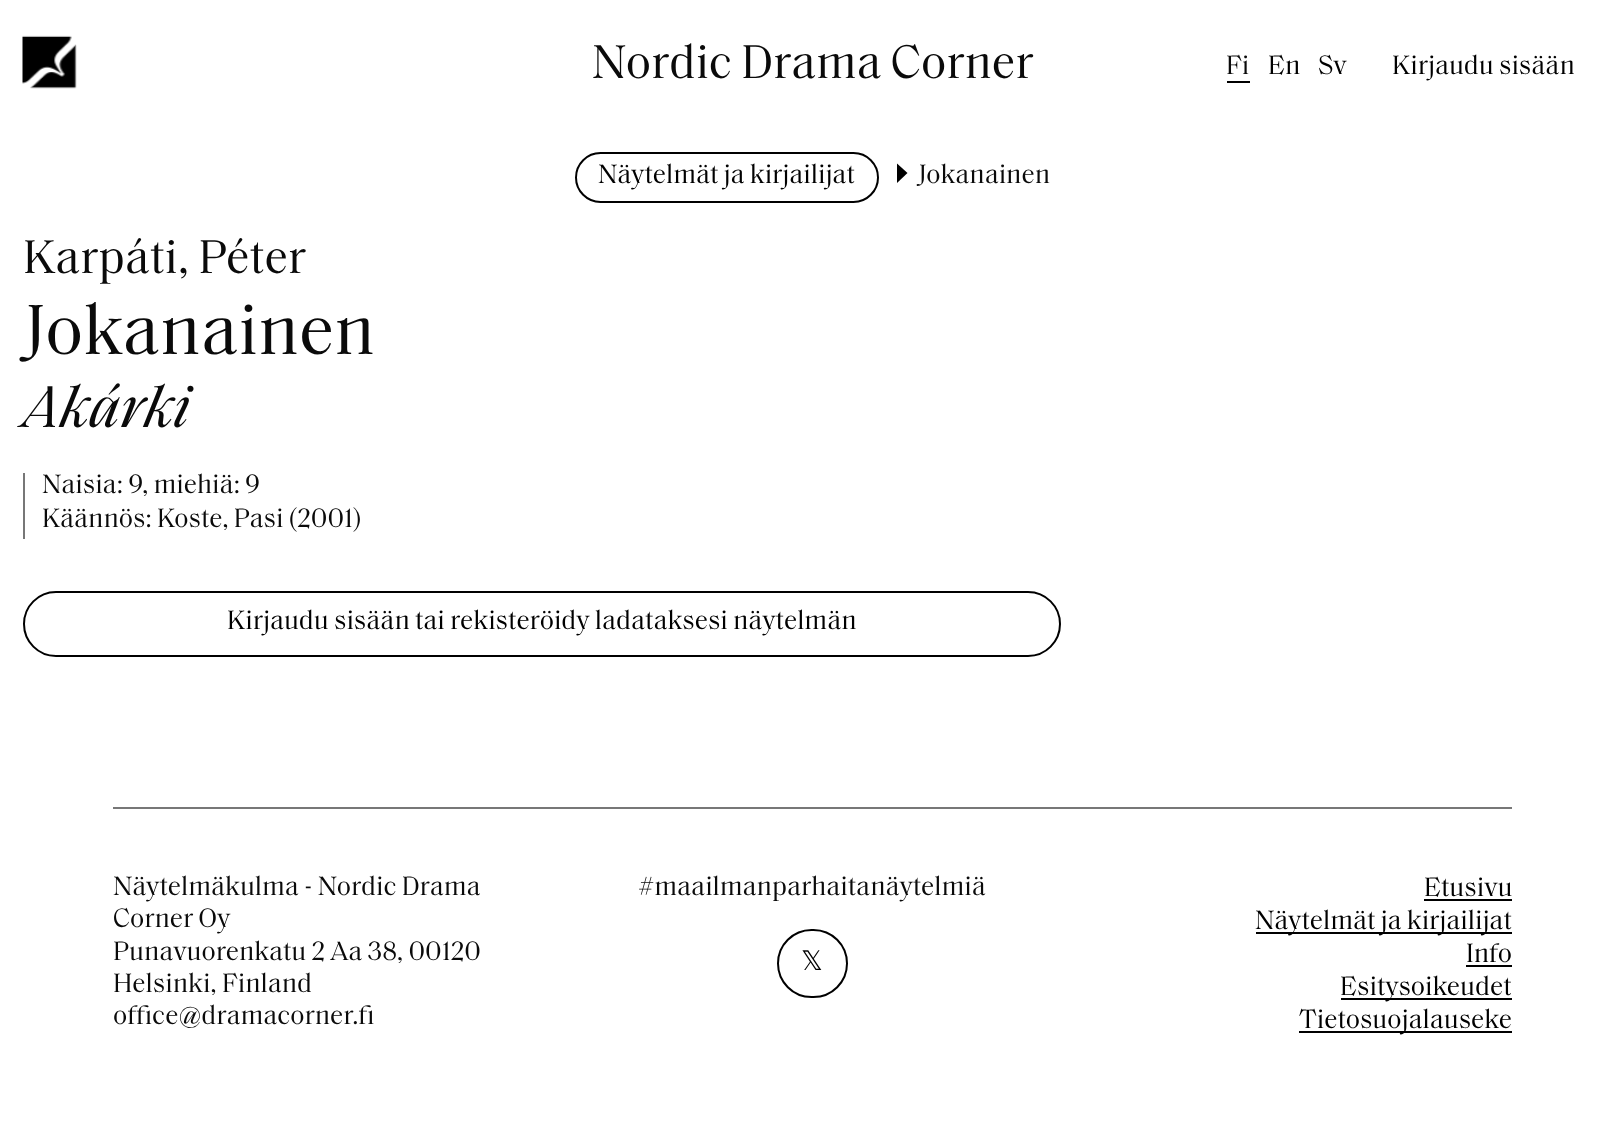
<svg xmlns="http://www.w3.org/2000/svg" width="1624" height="1130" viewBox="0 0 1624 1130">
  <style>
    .t1 { font: 48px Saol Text; fill: #0a0a0a; }
    .t2 { font: 27px Saol Text; fill: #0a0a0a; }
    .t3 { font: 27px Saol Text; fill: #000; }
    .t4 { font: 72px Saol Text; fill: #0a0a0a; }
    .t5 { font: italic 60px Saol Text; fill: #0a0a0a; }
    .t6 { font: 27px DejaVu Sans; fill: #000; }
  </style>
  <rect width="100%" height="100%" fill="#fff"/>
  <image x="22" y="35" width="55" height="54" href="images/1.png"/>
  <text x="592" y="78" class="t1">Nordic Drama Corner</text>
  <text x="1226" y="74" class="t2">Fi</text>
  <rect x="1227" y="81" width="23" height="2" fill="#000"/>
  <text x="1268" y="74" class="t3">En</text>
  <text x="1318" y="74" class="t3">Sv</text>
  <text x="1392" y="74" class="t3">Kirjaudu sisään</text>
  <rect x="576" y="153" width="302" height="49" rx="24.5" fill="none" stroke="#000" stroke-width="2"/>
  <text x="598" y="183" class="t3">Näytelmät ja kirjailijat</text>
  <path d="M907.5 173L897 183V163.5Z" fill="#000"/>
  <text x="918" y="183" class="t2">Jokanainen</text>
  <text x="23" y="273" class="t1">Karpáti, Péter</text>
  <text x="23" y="354" class="t4">Jokanainen</text>
  <text x="23" y="427" class="t5">Akárki</text>
  <rect x="23" y="473" width="2" height="66" fill="#777"/>
  <text x="42" y="493" class="t2">Naisia: 9, miehiä: 9</text>
  <text x="42" y="527" class="t2">Käännös: Koste, Pasi (2001)</text>
  <rect x="24" y="592" width="1036" height="64" rx="32" fill="none" stroke="#000" stroke-width="2"/>
  <text x="227" y="629" class="t3">Kirjaudu sisään tai rekisteröidy ladataksesi näytelmän</text>
  <rect x="113" y="807" width="1399" height="2" fill="#777"/>
  <text x="113" y="895" class="t2">Näytelmäkulma - Nordic Drama</text>
  <text x="113" y="927" class="t2">Corner Oy</text>
  <text x="113" y="960" class="t2">Punavuorenkatu 2 Aa 38, 00120</text>
  <text x="113" y="992" class="t2">Helsinki, Finland</text>
  <text x="113" y="1024" class="t2">office@dramacorner.fi</text>
  <text x="638" y="895" class="t2">#maailmanparhaitanäytelmiä</text>
  <rect x="778" y="930" width="69" height="67" rx="33.5" fill="none" stroke="#000" stroke-width="2"/>
  <text x="801" y="970" class="t6">𝕏</text>
  <text x="1424" y="896" class="t3">Etusivu</text>
  <rect x="1424" y="899" width="88" height="2" fill="#000"/>
  <rect x="1256" y="932" width="256" height="2" fill="#000"/>
  <text x="1255" y="929" class="t3">Näytelmät ja kirjailijat</text>
  <text x="1466" y="962" class="t3">Info</text>
  <rect x="1466" y="965" width="46" height="2" fill="#000"/>
  <rect x="1341" y="998" width="171" height="2" fill="#000"/>
  <text x="1340" y="995" class="t3">Esitysoikeudet</text>
  <rect x="1299" y="1031" width="213" height="2" fill="#000"/>
  <text x="1299" y="1028" class="t3">Tietosuojalauseke</text>
</svg>
